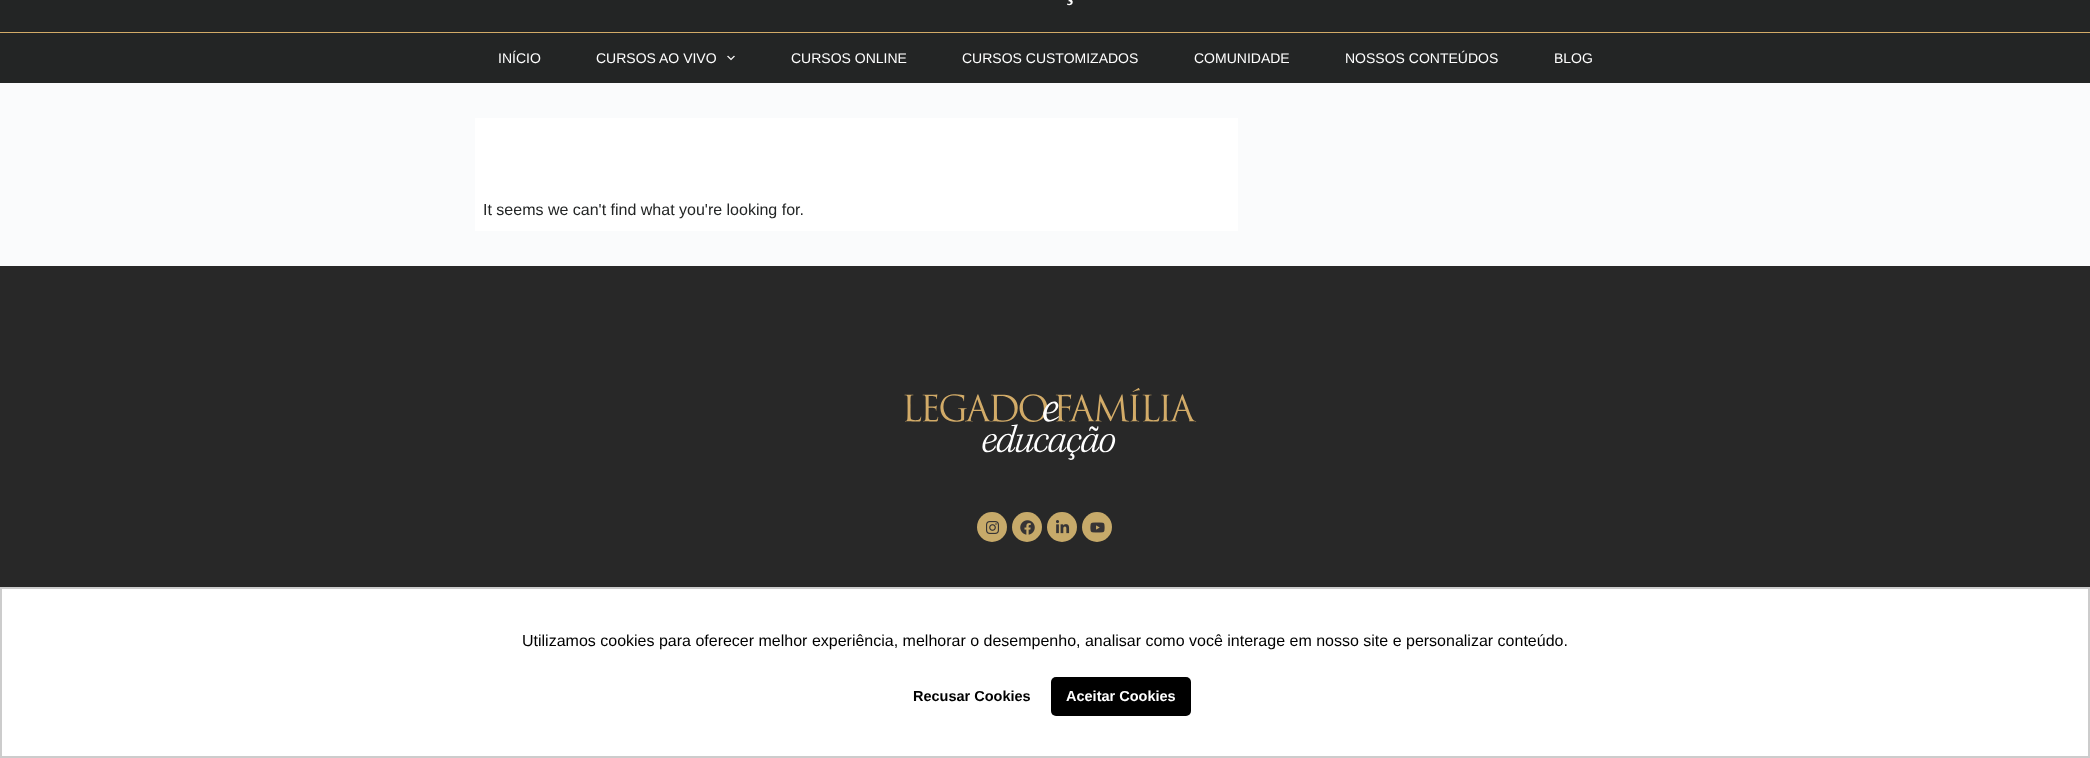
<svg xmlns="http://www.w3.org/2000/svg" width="2090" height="758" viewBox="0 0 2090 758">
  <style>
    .t1 { font: 14px Liberation Sans; fill: #fff; }
    .t2 { font: 16px Liberation Sans; fill: #232525; }
    .t3 { font: 16px Liberation Sans; fill: #000; }
    .t4 { font: bold 14.5px Liberation Sans; fill: #000; }
    .t5 { font: bold 14.5px Liberation Sans; fill: #fff; }
  </style>
  <rect width="100%" height="100%" fill="#fafbfc"/>
  <rect x="0" y="0" width="2090" height="32" fill="#232525"/>
  <rect x="0" y="32" width="2090" height="1" fill="#d2ab68"/>
  <image x="1067" y="0" width="6" height="6" href="images/1.png"/>
  <rect x="0" y="33" width="2090" height="50" fill="#232525"/>
  <text x="498" y="63" class="t1">INÍCIO</text>
  <text x="596" y="63" class="t1">CURSOS AO VIVO</text>
  <image x="727" y="55" width="8" height="6" href="images/2.png"/>
  <text x="791" y="63" class="t1">CURSOS ONLINE</text>
  <text x="962" y="63" class="t1">CURSOS CUSTOMIZADOS</text>
  <text x="1194" y="63" class="t1">COMUNIDADE</text>
  <text x="1345" y="63" class="t1">NOSSOS CONTEÚDOS</text>
  <text x="1554" y="63" class="t1">BLOG</text>
  <rect x="475" y="118" width="763" height="113" fill="#fff"/>
  <text x="483" y="215" class="t2">It seems we can't find what you're looking for.</text>
  <rect x="0" y="266" width="2090" height="321" fill="#282828"/>
  <image x="904" y="388" width="293" height="72" href="images/3.png"/>
  <circle cx="992" cy="527" r="15" fill="#c7aa6a"/>
  <image x="986" y="521" width="13" height="13" href="images/4.png"/>
  <circle cx="1027" cy="527" r="15" fill="#c7aa6a"/>
  <image x="1020" y="520" width="15" height="15" href="images/5.png"/>
  <circle cx="1062" cy="527" r="15" fill="#c7aa6a"/>
  <image x="1056" y="520" width="14" height="14" href="images/6.png"/>
  <circle cx="1097" cy="527" r="15" fill="#c7aa6a"/>
  <image x="1090" y="522" width="15" height="11" href="images/7.png"/>
  <rect x="1" y="588" width="2088" height="169" fill="#fff" stroke="#ccc" stroke-width="2"/>
  <text x="522" y="646" class="t3">Utilizamos cookies para oferecer melhor experiência, melhorar o desempenho, analisar como você interage em nosso site e personalizar conteúdo.</text>
  <text x="913" y="701" class="t4">Recusar Cookies</text>
  <rect x="1051" y="677" width="140" height="39" rx="5" fill="#000"/>
  <text x="1066" y="701" class="t5">Aceitar Cookies</text>
</svg>
